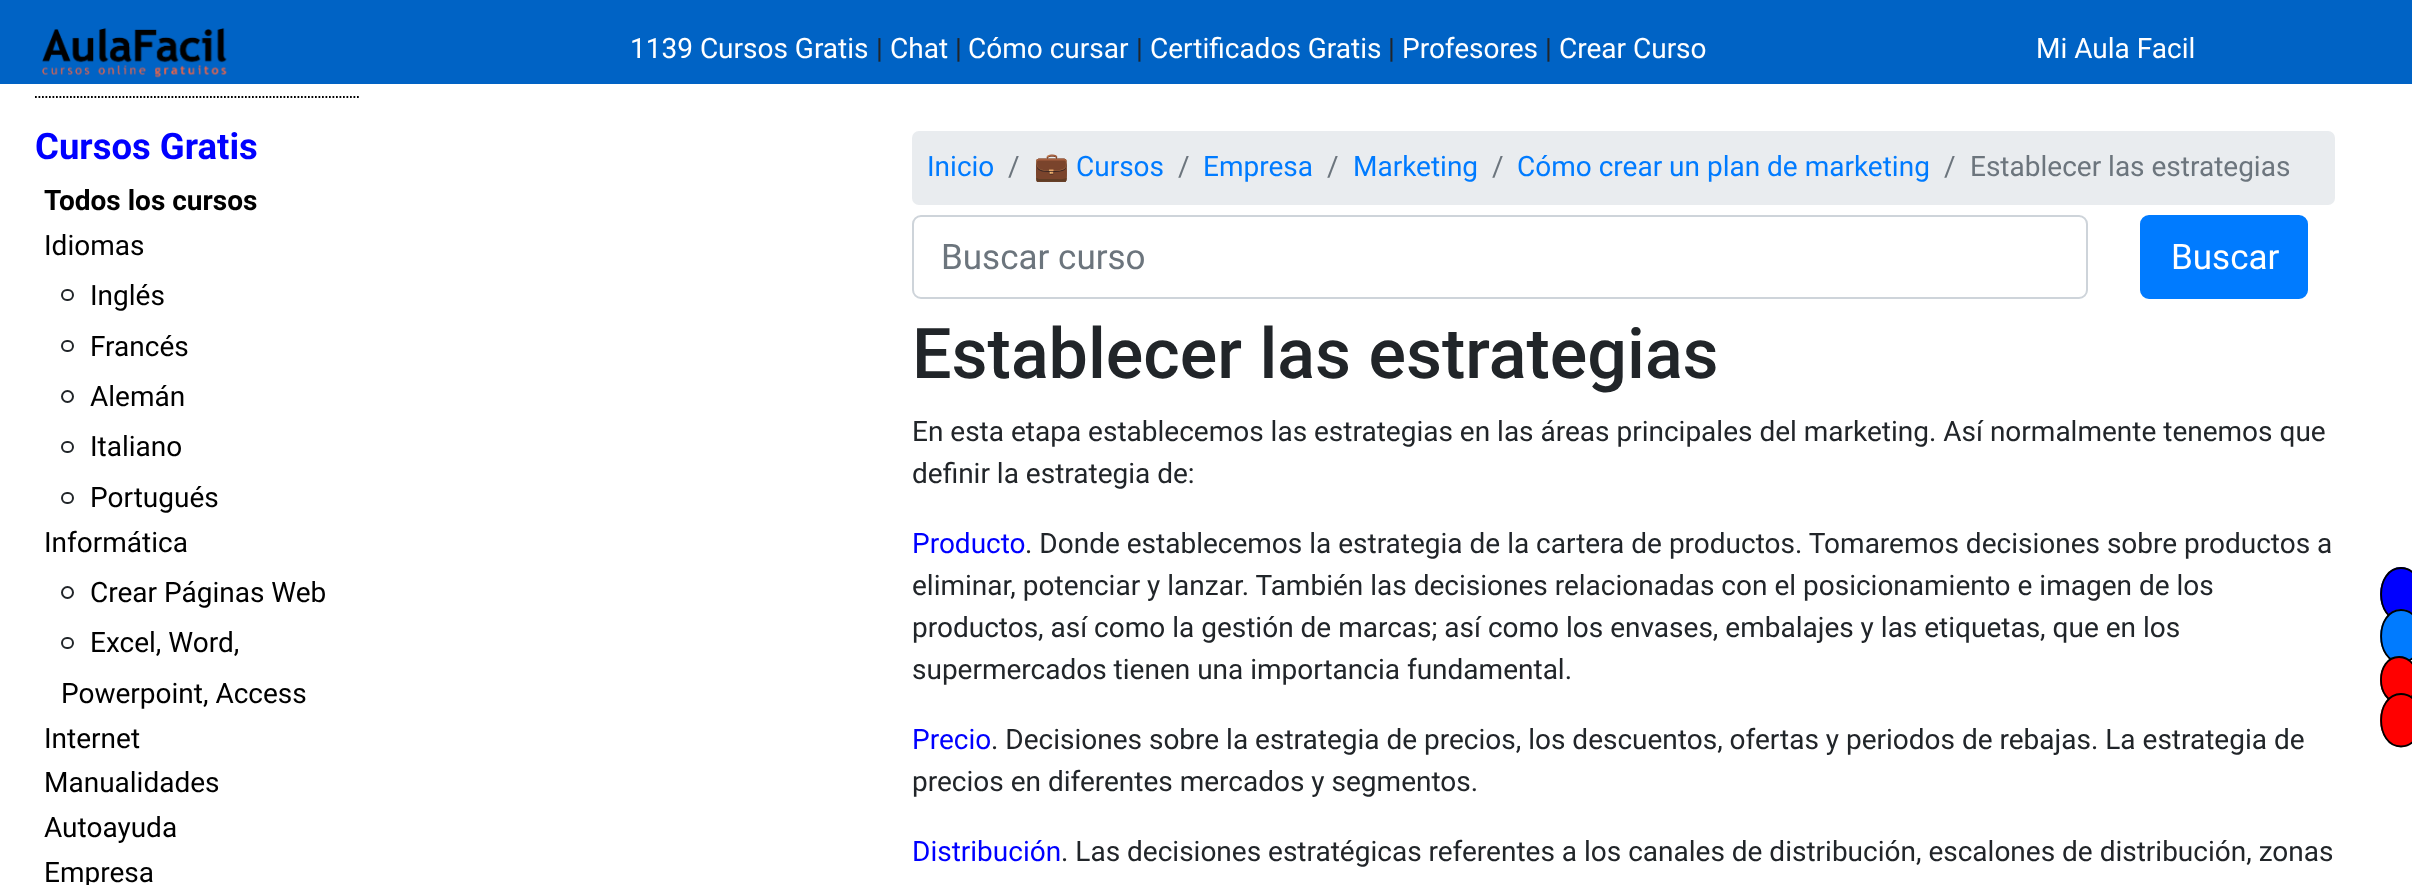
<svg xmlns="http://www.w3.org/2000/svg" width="2412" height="885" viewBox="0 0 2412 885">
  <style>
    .t1 { font: 28px Roboto; fill: #fff; }
    .t2 { font: 28px Roboto; fill: #212529; }
    .t3 { font: bold 36.5px Roboto; fill: #00f; }
    .t4 { font: bold 28px Roboto; fill: #000; }
    .t5 { font: 28px Roboto; fill: #000; }
    .t6 { font: 28px Roboto; fill: #007bff; }
    .t7 { font: 28px Roboto; fill: #6c757d; }
    .t8 { font: 28px Noto Color Emoji; fill: #007bff; }
    .t9 { font: 35px Roboto; fill: #6c757d; }
    .t10 { font: 35px Roboto; fill: #fff; }
    .t11 { font: 500 70px Roboto; fill: #212529; }
    .t12 { font: 28px Roboto; fill: #00f; }
  </style>
  <rect width="100%" height="100%" fill="#fff"/>
  <rect x="0" y="0" width="2412" height="84" fill="#0063c5"/>
  <image x="42" y="28" width="185" height="50" href="images/1.png"/>
  <text x="630" y="58" class="t1">1139 Cursos Gratis</text>
  <text x="876" y="58" class="t2">|</text>
  <text x="890" y="58" class="t1">Chat</text>
  <text x="955" y="58" class="t2">|</text>
  <text x="968" y="58" class="t1">Cómo cursar</text>
  <text x="1136" y="58" class="t2">|</text>
  <text x="1150" y="58" class="t1">Certificados Gratis</text>
  <text x="1388" y="58" class="t2">|</text>
  <text x="1402" y="58" class="t1">Profesores</text>
  <text x="1545" y="58" class="t2">|</text>
  <text x="1559" y="58" class="t1">Crear Curso</text>
  <text x="2036" y="58" class="t1">Mi Aula Facil</text>
  <path d="M35 97H359" fill="none" stroke="#000" stroke-width="1.8" stroke-dasharray="1.75 1.75"/>
  <text x="35" y="159" class="t3">Cursos Gratis</text>
  <text x="44" y="210" class="t4">Todos los cursos</text>
  <text x="44" y="255" class="t5">Idiomas</text>
  <rect x="62" y="290" width="11" height="10" rx="5" fill="none" stroke="#212529" stroke-width="2"/>
  <text x="90" y="305" class="t5">Inglés</text>
  <rect x="62" y="341" width="11" height="10" rx="5" fill="none" stroke="#212529" stroke-width="2"/>
  <text x="90" y="356" class="t5">Francés</text>
  <circle cx="67.5" cy="396.5" r="5.5" fill="none" stroke="#212529" stroke-width="2"/>
  <text x="90" y="406" class="t5">Alemán</text>
  <rect x="62" y="442" width="11" height="10" rx="5" fill="none" stroke="#212529" stroke-width="2"/>
  <text x="90" y="456" class="t5">Italiano</text>
  <rect x="62" y="493" width="11" height="10" rx="5" fill="none" stroke="#212529" stroke-width="2"/>
  <text x="90" y="507" class="t5">Portugués</text>
  <text x="44" y="552" class="t5">Informática</text>
  <circle cx="67.5" cy="592.5" r="5.5" fill="none" stroke="#212529" stroke-width="2"/>
  <text x="90" y="602" class="t5">Crear Páginas Web</text>
  <rect x="62" y="638" width="11" height="10" rx="5" fill="none" stroke="#212529" stroke-width="2"/>
  <text x="90" y="652" class="t5">Excel, Word,</text>
  <text x="61" y="703" class="t5">Powerpoint, Access</text>
  <text x="44" y="748" class="t5">Internet</text>
  <text x="44" y="792" class="t5">Manualidades</text>
  <text x="44" y="837" class="t5">Autoayuda</text>
  <text x="44" y="882" class="t5">Empresa</text>
  <rect x="912" y="131" width="1423" height="74" rx="7" fill="#e9ecef"/>
  <text x="927" y="176" class="t6">Inicio</text>
  <text x="1008" y="176" class="t7">/</text>
  <text x="1034" y="176" class="t8">💼</text>
  <text x="1076" y="176" class="t6">Cursos</text>
  <text x="1178" y="176" class="t7">/</text>
  <text x="1203" y="176" class="t6">Empresa</text>
  <text x="1327" y="176" class="t7">/</text>
  <text x="1353" y="176" class="t6">Marketing</text>
  <text x="1492" y="176" class="t7">/</text>
  <text x="1517" y="176" class="t6">Cómo crear un plan de marketing</text>
  <text x="1944" y="176" class="t7">/</text>
  <text x="1970" y="176" class="t7">Establecer las estrategias</text>
  <rect x="913" y="216" width="1174" height="82" rx="8" fill="none" stroke="#ced4da" stroke-width="2"/>
  <text x="941" y="269" class="t9">Buscar curso</text>
  <rect x="2141" y="216" width="166" height="82" rx="8" fill="#007bff" stroke="#007bff" stroke-width="2"/>
  <text x="2171" y="269" class="t10">Buscar</text>
  <text x="912" y="378" class="t11">Establecer las estrategias</text>
  <text x="912" y="441" class="t2">En esta etapa establecemos las estrategias en las áreas principales del marketing. Así normalmente tenemos que</text>
  <text x="912" y="483" class="t2">definir la estrategia de:</text>
  <text x="912" y="553" class="t12">Producto</text>
  <text x="1025" y="553" class="t2">. Donde establecemos la estrategia de la cartera de productos. Tomaremos decisiones sobre productos a</text>
  <text x="912" y="595" class="t2">eliminar, potenciar y lanzar. También las decisiones relacionadas con el posicionamiento e imagen de los</text>
  <text x="912" y="637" class="t2">productos, así como la gestión de marcas; así como los envases, embalajes y las etiquetas, que en los</text>
  <text x="912" y="679" class="t2">supermercados tienen una importancia fundamental.</text>
  <text x="912" y="749" class="t12">Precio</text>
  <text x="991" y="749" class="t2">. Decisiones sobre la estrategia de precios, los descuentos, ofertas y periodos de rebajas. La estrategia de</text>
  <text x="912" y="791" class="t2">precios en diferentes mercados y segmentos.</text>
  <text x="912" y="861" class="t12">Distribución</text>
  <text x="1061" y="861" class="t2">. Las decisiones estratégicas referentes a los canales de distribución, escalones de distribución, zonas</text>
  <ellipse cx="2401" cy="594" rx="21" ry="27" fill="#00f"/>
  <path d="M2401 568C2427.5 568 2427.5 620.5 2401 620.5C2374.5 620.5 2374.5 568 2401 568Z" fill="none" stroke="#000" stroke-width="1.8"/>
  <ellipse cx="2401" cy="636" rx="21" ry="27" fill="#007bff"/>
  <path d="M2401 610C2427.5 610 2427.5 662.5 2401 662.5C2374.5 662.5 2374.5 610 2401 610Z" fill="none" stroke="#000" stroke-width="1.8"/>
  <ellipse cx="2399" cy="680" rx="19" ry="23.5" fill="#f00"/>
  <path d="M2399 657C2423.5 657 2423.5 702.5 2399 702.5C2375 702.5 2375 657 2399 657Z" fill="none" stroke="#000" stroke-width="1.8"/>
  <ellipse cx="2401" cy="720" rx="21" ry="27" fill="#f00"/>
  <path d="M2401 694C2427.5 694 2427.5 746.5 2401 746.5C2374.5 746.5 2374.5 694 2401 694Z" fill="none" stroke="#000" stroke-width="1.8"/>
</svg>
